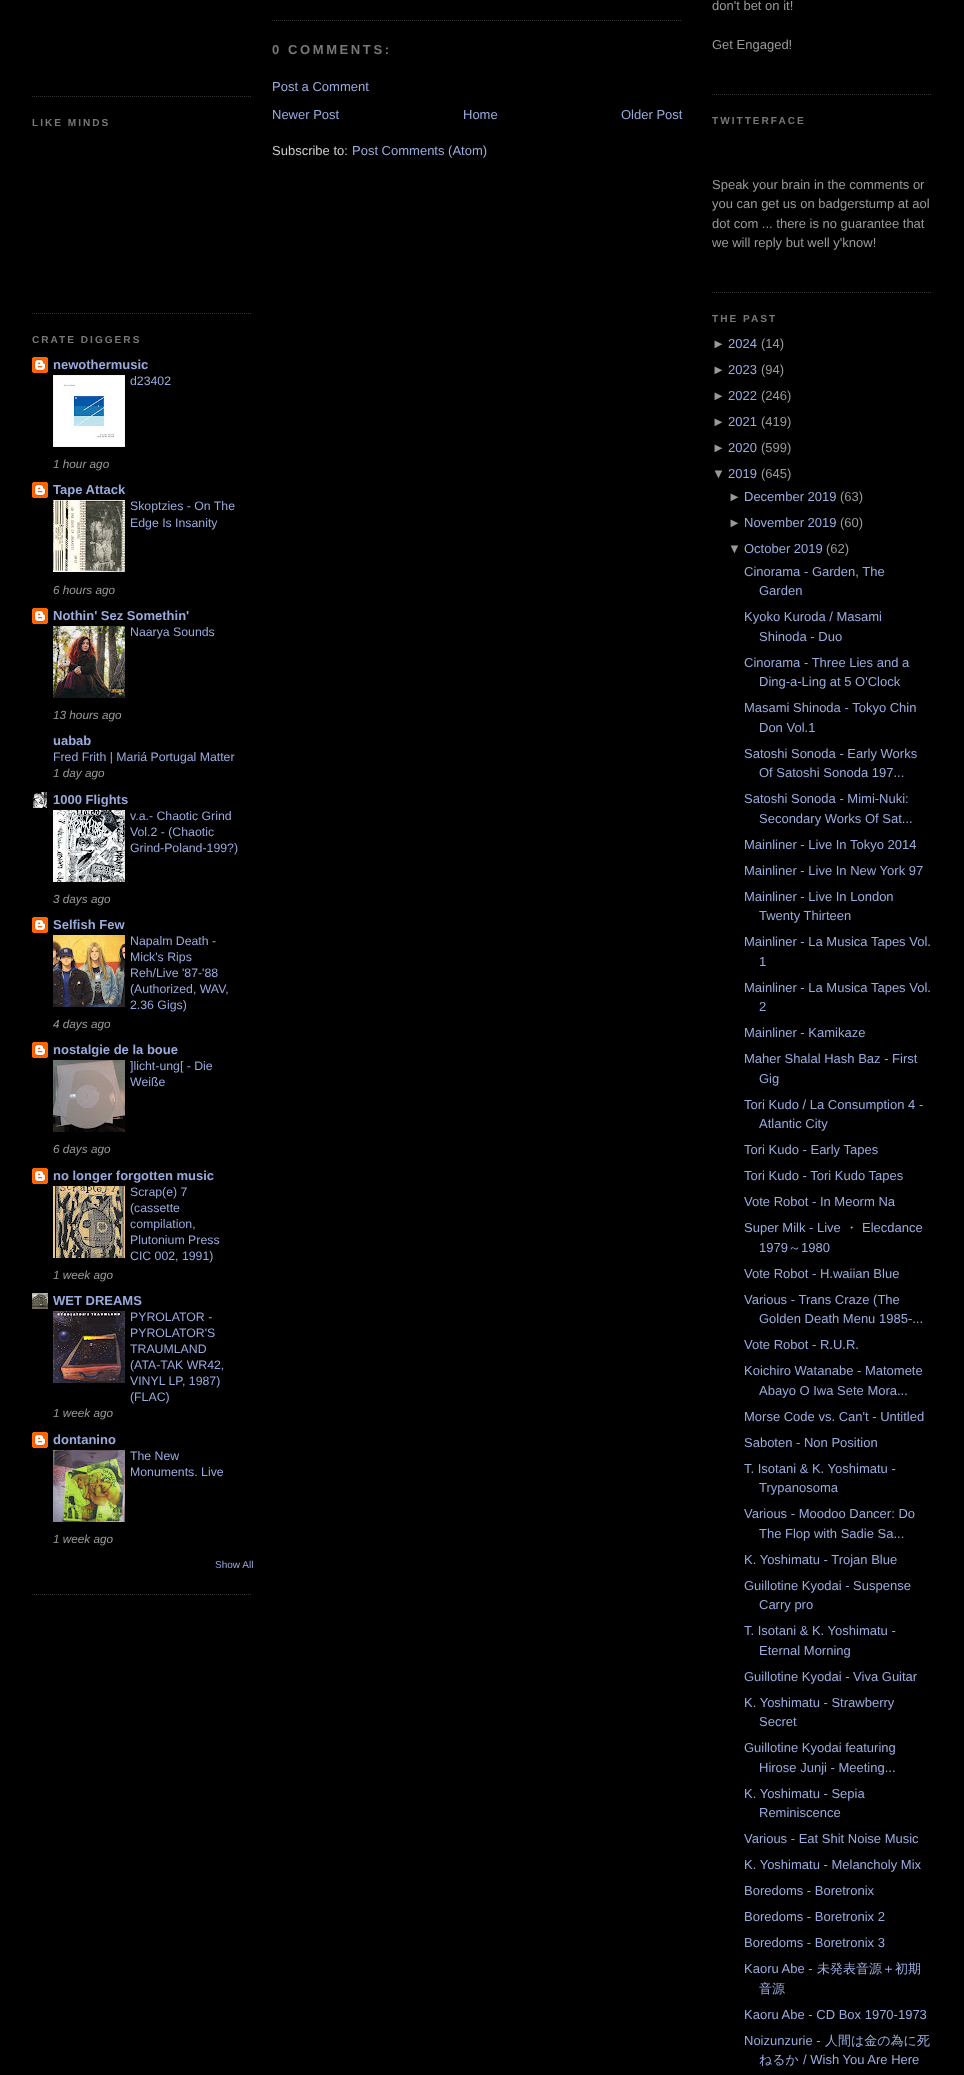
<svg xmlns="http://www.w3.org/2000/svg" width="964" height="2075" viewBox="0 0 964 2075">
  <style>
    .t1 { font: bold 13px Liberation Sans; letter-spacing: 2.6px; fill: #777; }
    .t2 { font: 13px Liberation Sans; fill: #9ad; }
    .t3 { font: 13px Liberation Sans; fill: #ccc; }
    .t4 { font: 13px Liberation Sans; fill: #999; }
    .t5 { font: bold 10.1px Liberation Sans; letter-spacing: 2px; fill: #777; }
    .t6 { font: 500 13px WenQuanYi Zen Hei; fill: #9ad; }
    .t7 { font: bold 13px Liberation Sans; fill: #9ad; }
    .t8 { font: 12.3px Liberation Sans; fill: #9ad; }
    .t9 { font: italic 11.75px Liberation Sans; fill: #999; }
    .t10 { font: 10px Liberation Sans; fill: #9ad; }
  </style>
  <rect width="100%" height="100%" fill="#000"/>
  <path d="M272 20.5H682" fill="none" stroke="#333" stroke-dasharray="1 1"/>
  <text x="272" y="54" class="t1">0 COMMENTS:</text>
  <text x="272" y="91" class="t2">Post a Comment</text>
  <text x="272" y="119" class="t2">Newer Post</text>
  <text x="463" y="119" class="t2">Home</text>
  <text x="621" y="119" class="t2">Older Post</text>
  <text x="272" y="155" class="t3">Subscribe to:</text>
  <text x="352" y="155" class="t2">Post Comments (Atom)</text>
  <path d="M712 94.5H932" fill="none" stroke="#333" stroke-dasharray="1 1"/>
  <text x="712" y="10" class="t4">don't bet on it!</text>
  <text x="712" y="49" class="t4">Get Engaged!</text>
  <path d="M712 292.5H932" fill="none" stroke="#333" stroke-dasharray="1 1"/>
  <text x="712" y="124" class="t5">TWITTERFACE</text>
  <text x="712" y="189" class="t4">Speak your brain in the comments or</text>
  <text x="712" y="208" class="t4">you can get us on badgerstump at aol</text>
  <text x="712" y="228" class="t4">dot com ... there is no guarantee that</text>
  <text x="712" y="247" class="t4">we will reply but well y'know!</text>
  <text x="712" y="322" class="t5">THE PAST</text>
  <text x="712" y="348" class="t4">►</text>
  <text x="728" y="348" class="t2">2024</text>
  <text x="761" y="348" class="t4">(14)</text>
  <text x="712" y="374" class="t4">►</text>
  <text x="728" y="374" class="t2">2023</text>
  <text x="761" y="374" class="t4">(94)</text>
  <text x="712" y="400" class="t4">►</text>
  <text x="728" y="400" class="t2">2022</text>
  <text x="761" y="400" class="t4">(246)</text>
  <text x="712" y="426" class="t4">►</text>
  <text x="728" y="426" class="t2">2021</text>
  <text x="761" y="426" class="t4">(419)</text>
  <text x="712" y="452" class="t4">►</text>
  <text x="728" y="452" class="t2">2020</text>
  <text x="761" y="452" class="t4">(599)</text>
  <text x="712" y="478" class="t4">▼</text>
  <text x="728" y="478" class="t2">2019</text>
  <text x="761" y="478" class="t4">(645)</text>
  <text x="728" y="501" class="t4">►</text>
  <text x="744" y="501" class="t2">December 2019</text>
  <text x="840" y="501" class="t4">(63)</text>
  <text x="728" y="527" class="t4">►</text>
  <text x="744" y="527" class="t2">November 2019</text>
  <text x="840" y="527" class="t4">(60)</text>
  <text x="728" y="553" class="t4">▼</text>
  <text x="744" y="553" class="t2">October 2019</text>
  <text x="826" y="553" class="t4">(62)</text>
  <text x="744" y="576" class="t2">Cinorama - Garden, The</text>
  <text x="759" y="595" class="t2">Garden</text>
  <text x="744" y="621" class="t2">Kyoko Kuroda / Masami</text>
  <text x="759" y="641" class="t2">Shinoda - Duo</text>
  <text x="744" y="667" class="t2">Cinorama - Three Lies and a</text>
  <text x="759" y="686" class="t2">Ding-a-Ling at 5 O'Clock</text>
  <text x="744" y="712" class="t2">Masami Shinoda - Tokyo Chin</text>
  <text x="759" y="732" class="t2">Don Vol.1</text>
  <text x="744" y="758" class="t2">Satoshi Sonoda - Early Works</text>
  <text x="759" y="777" class="t2">Of Satoshi Sonoda 197...</text>
  <text x="744" y="803" class="t2">Satoshi Sonoda - Mimi-Nuki:</text>
  <text x="759" y="823" class="t2">Secondary Works Of Sat...</text>
  <text x="744" y="849" class="t2">Mainliner - Live In Tokyo 2014</text>
  <text x="744" y="875" class="t2">Mainliner - Live In New York 97</text>
  <text x="744" y="901" class="t2">Mainliner - Live In London</text>
  <text x="759" y="920" class="t2">Twenty Thirteen</text>
  <text x="744" y="946" class="t2">Mainliner - La Musica Tapes Vol.</text>
  <text x="759" y="966" class="t2">1</text>
  <text x="744" y="992" class="t2">Mainliner - La Musica Tapes Vol.</text>
  <text x="759" y="1011" class="t2">2</text>
  <text x="744" y="1037" class="t2">Mainliner - Kamikaze</text>
  <text x="744" y="1063" class="t2">Maher Shalal Hash Baz - First</text>
  <text x="759" y="1083" class="t2">Gig</text>
  <text x="744" y="1109" class="t2">Tori Kudo / La Consumption 4 -</text>
  <text x="759" y="1128" class="t2">Atlantic City</text>
  <text x="744" y="1154" class="t2">Tori Kudo - Early Tapes</text>
  <text x="744" y="1180" class="t2">Tori Kudo - Tori Kudo Tapes</text>
  <text x="744" y="1206" class="t2">Vote Robot - In Meorm Na</text>
  <text x="744" y="1232" class="t2">Super Milk - Live</text>
  <text x="845" y="1232" class="t6">・</text>
  <text x="862" y="1232" class="t2">Elecdance</text>
  <text x="759" y="1252" class="t2">1979</text>
  <text x="788" y="1252" class="t6">～</text>
  <text x="801" y="1252" class="t2">1980</text>
  <text x="744" y="1278" class="t2">Vote Robot - H.waiian Blue</text>
  <text x="744" y="1304" class="t2">Various - Trans Craze (The</text>
  <text x="759" y="1323" class="t2">Golden Death Menu 1985-...</text>
  <text x="744" y="1349" class="t2">Vote Robot - R.U.R.</text>
  <text x="744" y="1375" class="t2">Koichiro Watanabe - Matomete</text>
  <text x="759" y="1395" class="t2">Abayo O Iwa Sete Mora...</text>
  <text x="744" y="1421" class="t2">Morse Code vs. Can't - Untitled</text>
  <text x="744" y="1447" class="t2">Saboten - Non Position</text>
  <text x="744" y="1473" class="t2">T. Isotani &amp; K. Yoshimatu -</text>
  <text x="759" y="1492" class="t2">Trypanosoma</text>
  <text x="744" y="1518" class="t2">Various - Moodoo Dancer: Do</text>
  <text x="759" y="1538" class="t2">The Flop with Sadie Sa...</text>
  <text x="744" y="1564" class="t2">K. Yoshimatu - Trojan Blue</text>
  <text x="744" y="1590" class="t2">Guillotine Kyodai - Suspense</text>
  <text x="759" y="1609" class="t2">Carry pro</text>
  <text x="744" y="1635" class="t2">T. Isotani &amp; K. Yoshimatu -</text>
  <text x="759" y="1655" class="t2">Eternal Morning</text>
  <text x="744" y="1681" class="t2">Guillotine Kyodai - Viva Guitar</text>
  <text x="744" y="1707" class="t2">K. Yoshimatu - Strawberry</text>
  <text x="759" y="1726" class="t2">Secret</text>
  <text x="744" y="1752" class="t2">Guillotine Kyodai featuring</text>
  <text x="759" y="1772" class="t2">Hirose Junji - Meeting...</text>
  <text x="744" y="1798" class="t2">K. Yoshimatu - Sepia</text>
  <text x="759" y="1817" class="t2">Reminiscence</text>
  <text x="744" y="1843" class="t2">Various - Eat Shit Noise Music</text>
  <text x="744" y="1869" class="t2">K. Yoshimatu - Melancholy Mix</text>
  <text x="744" y="1895" class="t2">Boredoms - Boretronix</text>
  <text x="744" y="1921" class="t2">Boredoms - Boretronix 2</text>
  <text x="744" y="1947" class="t2">Boredoms - Boretronix 3</text>
  <text x="744" y="1973" class="t2">Kaoru Abe -</text>
  <text x="817" y="1973" class="t6">未発表音源＋初期</text>
  <text x="759" y="1993" class="t6">音源</text>
  <text x="744" y="2019" class="t2">Kaoru Abe - CD Box 1970-1973</text>
  <text x="744" y="2045" class="t2">Noizunzurie -</text>
  <text x="825" y="2045" class="t6">人間は金の為に死</text>
  <text x="759" y="2064" class="t6">ねるか</text>
  <text x="803" y="2064" class="t2">/ Wish You Are Here</text>
  <path d="M32 96.5H252" fill="none" stroke="#333" stroke-dasharray="1 1"/>
  <path d="M32 313.5H252" fill="none" stroke="#333" stroke-dasharray="1 1"/>
  <text x="32" y="126" class="t5">LIKE MINDS</text>
  <path d="M32 1594.5H252" fill="none" stroke="#333" stroke-dasharray="1 1"/>
  <text x="32" y="343" class="t5">CRATE DIGGERS</text>
  <image x="32" y="357" width="16" height="16" href="images/1.png"/>
  <text x="53" y="369" class="t7">newothermusic</text>
  <image x="53" y="375" width="72" height="72" href="images/2.png"/>
  <text x="130" y="385" class="t8">d23402</text>
  <text x="53" y="468" class="t9">1 hour ago</text>
  <image x="32" y="482" width="16" height="16" href="images/1.png"/>
  <text x="53" y="494" class="t7">Tape Attack</text>
  <image x="53" y="500" width="72" height="72" href="images/3.png"/>
  <text x="130" y="510" class="t8">Skoptzies - On The</text>
  <text x="130" y="527" class="t8">Edge Is Insanity</text>
  <text x="53" y="594" class="t9">6 hours ago</text>
  <image x="32" y="608" width="16" height="16" href="images/1.png"/>
  <text x="53" y="620" class="t7">Nothin' Sez Somethin'</text>
  <image x="53" y="626" width="72" height="72" href="images/4.png"/>
  <text x="130" y="636" class="t8">Naarya Sounds</text>
  <text x="53" y="719" class="t9">13 hours ago</text>
  <text x="53" y="745" class="t7">uabab</text>
  <text x="53" y="761" class="t8">Fred Frith | Mariá Portugal Matter</text>
  <text x="53" y="777" class="t9">1 day ago</text>
  <image x="32" y="792" width="15" height="16" href="images/5.png"/>
  <text x="53" y="804" class="t7">1000 Flights</text>
  <image x="53" y="810" width="72" height="72" href="images/6.png"/>
  <text x="130" y="820" class="t8">v.a.- Chaotic Grind</text>
  <text x="130" y="836" class="t8">Vol.2 - (Chaotic</text>
  <text x="130" y="852" class="t8">Grind-Poland-199?)</text>
  <text x="53" y="903" class="t9">3 days ago</text>
  <image x="32" y="917" width="16" height="16" href="images/1.png"/>
  <text x="53" y="929" class="t7">Selfish Few</text>
  <image x="53" y="935" width="72" height="72" href="images/7.png"/>
  <text x="130" y="945" class="t8">Napalm Death -</text>
  <text x="130" y="961" class="t8">Mick's Rips</text>
  <text x="130" y="977" class="t8">Reh/Live '87-'88</text>
  <text x="130" y="993" class="t8">(Authorized, WAV,</text>
  <text x="130" y="1009" class="t8">2.36 Gigs)</text>
  <text x="53" y="1028" class="t9">4 days ago</text>
  <image x="32" y="1042" width="16" height="16" href="images/1.png"/>
  <text x="53" y="1054" class="t7">nostalgie de la boue</text>
  <image x="53" y="1060" width="72" height="72" href="images/8.png"/>
  <text x="130" y="1070" class="t8">]licht-ung[ - Die</text>
  <text x="130" y="1086" class="t8">Weiße</text>
  <text x="53" y="1153" class="t9">6 days ago</text>
  <image x="32" y="1168" width="16" height="16" href="images/1.png"/>
  <text x="53" y="1180" class="t7">no longer forgotten music</text>
  <image x="53" y="1186" width="72" height="72" href="images/9.png"/>
  <text x="130" y="1196" class="t8">Scrap(e) 7</text>
  <text x="130" y="1212" class="t8">(cassette</text>
  <text x="130" y="1228" class="t8">compilation,</text>
  <text x="130" y="1244" class="t8">Plutonium Press</text>
  <text x="130" y="1260" class="t8">CIC 002, 1991)</text>
  <text x="53" y="1279" class="t9">1 week ago</text>
  <image x="32" y="1293" width="16" height="16" href="images/10.png"/>
  <text x="53" y="1305" class="t7">WET DREAMS</text>
  <image x="53" y="1311" width="72" height="72" href="images/11.png"/>
  <text x="130" y="1321" class="t8">PYROLATOR -</text>
  <text x="130" y="1337" class="t8">PYROLATOR'S</text>
  <text x="130" y="1353" class="t8">TRAUMLAND</text>
  <text x="130" y="1369" class="t8">(ATA-TAK WR42,</text>
  <text x="130" y="1385" class="t8">VINYL LP, 1987)</text>
  <text x="130" y="1401" class="t8">(FLAC)</text>
  <text x="53" y="1417" class="t9">1 week ago</text>
  <image x="32" y="1432" width="16" height="16" href="images/1.png"/>
  <text x="53" y="1444" class="t7">dontanino</text>
  <image x="53" y="1450" width="72" height="72" href="images/12.png"/>
  <text x="130" y="1460" class="t8">The New</text>
  <text x="130" y="1476" class="t8">Monuments. Live</text>
  <text x="53" y="1543" class="t9">1 week ago</text>
  <text x="215" y="1568" class="t10">Show All</text>
</svg>
